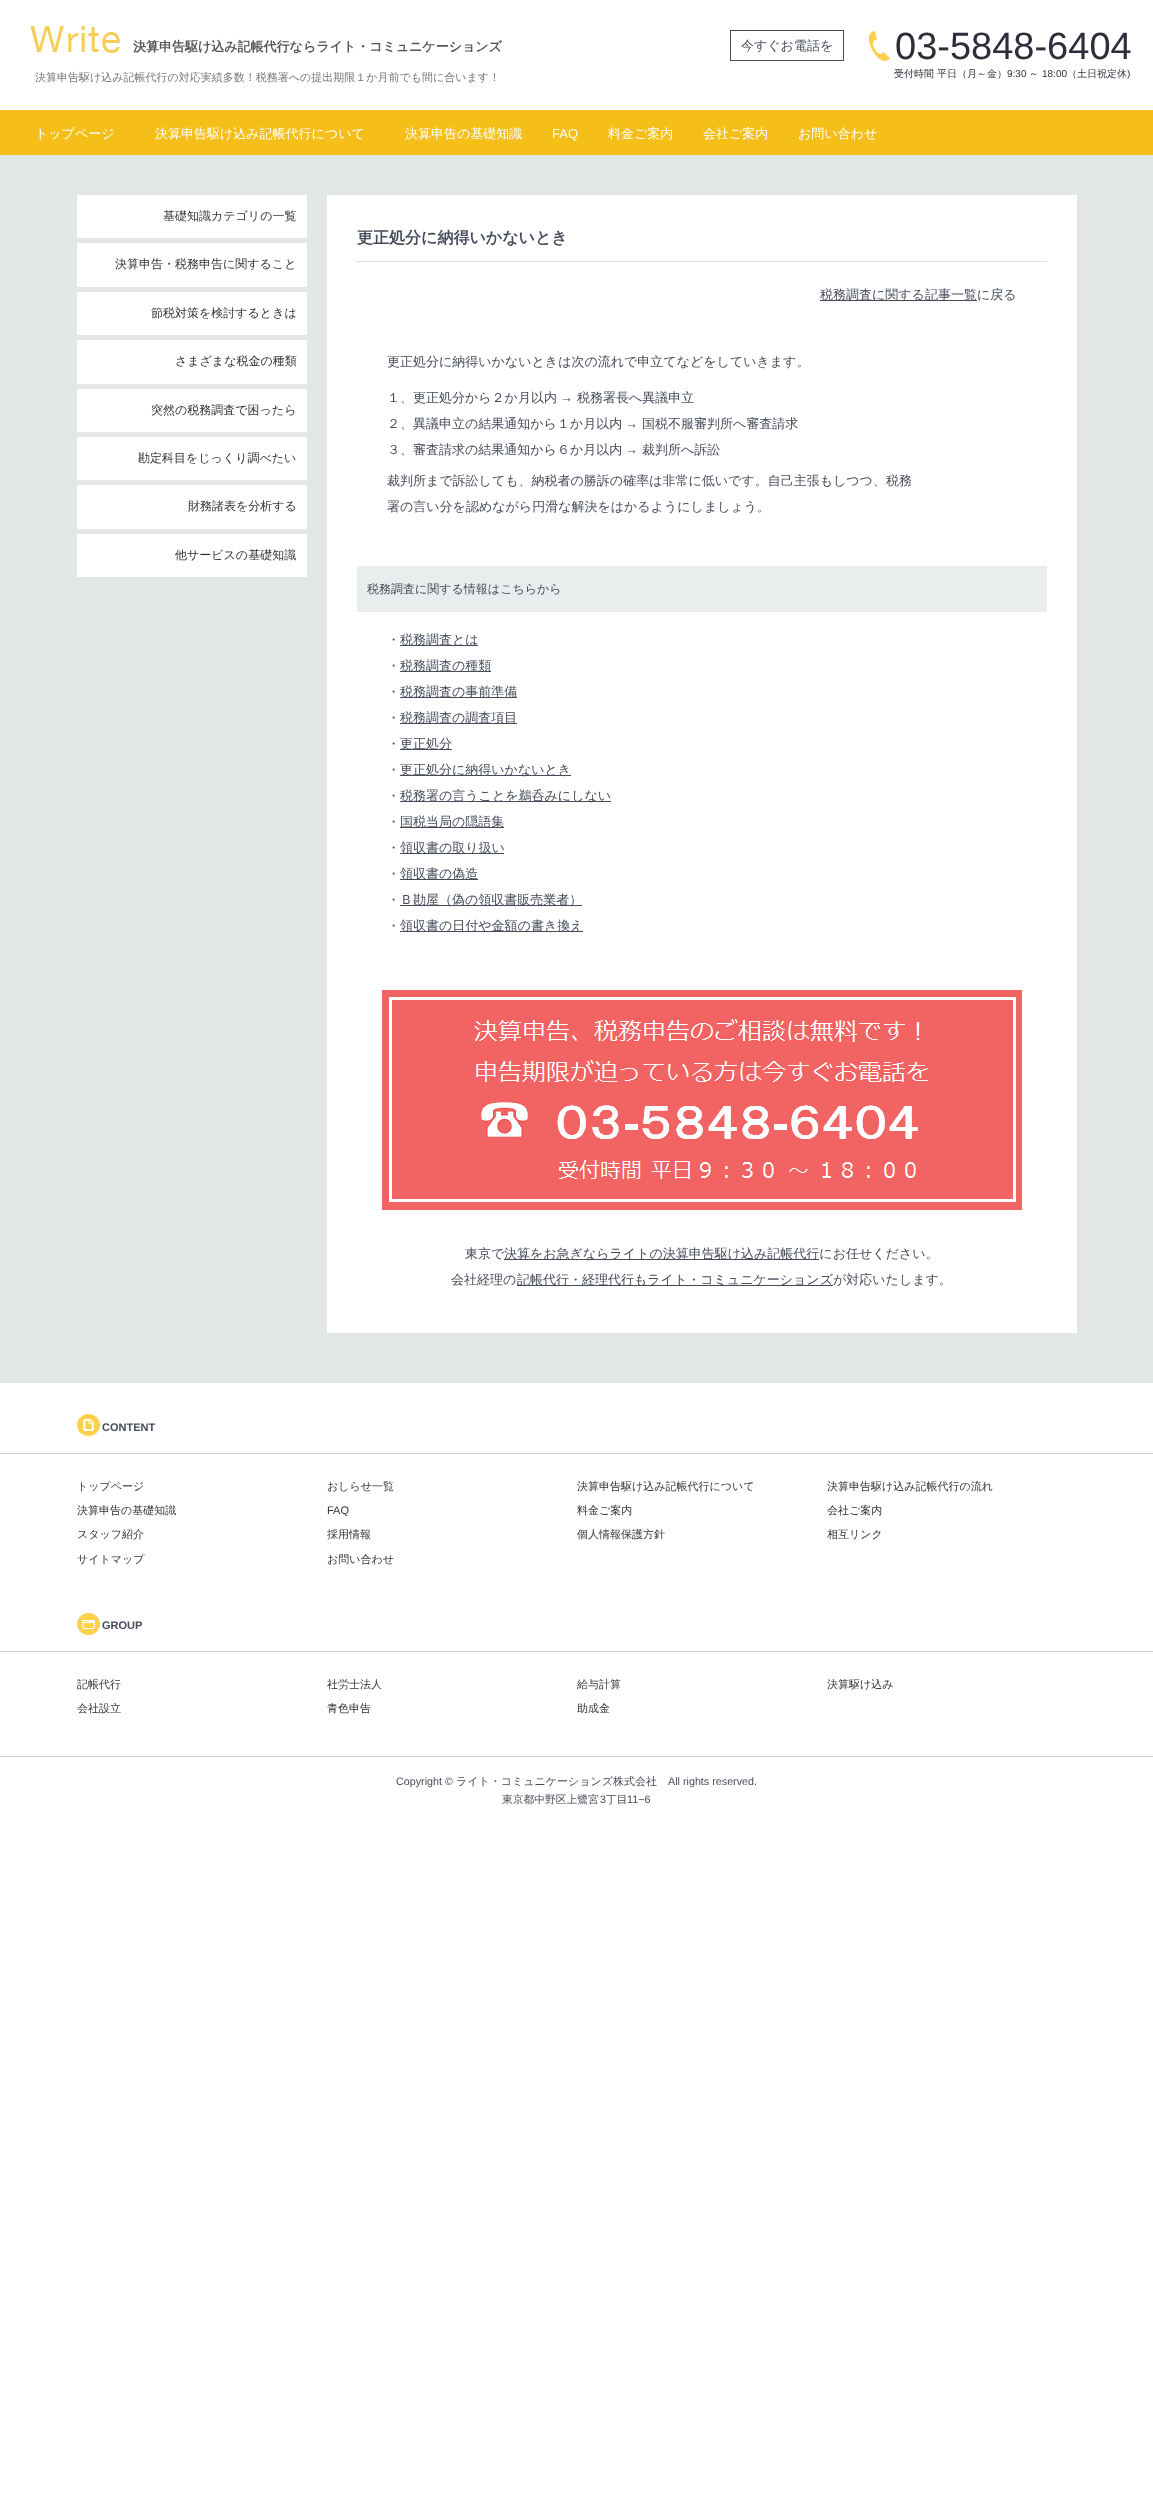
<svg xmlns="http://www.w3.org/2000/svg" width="1153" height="2514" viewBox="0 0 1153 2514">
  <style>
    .t1 { font: bold 13px WenQuanYi Zen Hei; fill: #555; }
    .t2 { font: 500 13px WenQuanYi Zen Hei; fill: #464b5a; }
    .t3 { font: 38px Liberation Sans; fill: #2e2e3b; }
    .t4 { font: 500 10px WenQuanYi Zen Hei; fill: #2e2e3b; }
    .t5 { font: 10px Liberation Sans; fill: #2e2e3b; }
    .t6 { font: 500 11px WenQuanYi Zen Hei; fill: #777; }
    .t7 { font: 500 13px WenQuanYi Zen Hei; fill: #fff; }
    .t8 { font: 13px Liberation Sans; fill: #fff; }
    .t9 { font: 500 12px WenQuanYi Zen Hei; fill: #333; }
    .t10 { font: bold 16px WenQuanYi Zen Hei; fill: #464b5a; }
    .t11 { font: 13px Liberation Sans; fill: #464b5a; }
    .t12 { font: 500 12px WenQuanYi Zen Hei; fill: #464b5a; }
    .t13 { font: bold 11px Liberation Sans; fill: #464b5a; }
    .t14 { font: 500 11px WenQuanYi Zen Hei; fill: #333; }
    .t15 { font: 11px Liberation Sans; fill: #333; }
    .t16 { font: 10.75px Liberation Sans; fill: #464b5a; }
    .t17 { font: 500 11px WenQuanYi Zen Hei; fill: #464b5a; }
    .t18 { font: 500 10.75px WenQuanYi Zen Hei; fill: #464b5a; }
  </style>
  <rect width="100%" height="100%" fill="#fff"/>
  <rect x="0" y="110" width="1153" height="45" fill="#f5be19"/>
  <image x="30" y="26" width="90" height="27" href="images/1.png"/>
  <text x="133" y="51" class="t1">決算申告駆け込み記帳代行ならライト・コミュニケーションズ</text>
  <rect x="730.5" y="30.5" width="113" height="30" fill="none" stroke="#464b5a"/>
  <text x="741" y="50" class="t2">今すぐお電話を</text>
  <image x="869" y="31" width="21" height="30" href="images/2.png"/>
  <text x="895" y="59" class="t3">03-5848-6404</text>
  <text x="894" y="77" class="t4">受付時間 平日（月～金）</text>
  <text x="1007" y="77" class="t5">9:30</text>
  <text x="1029" y="77" class="t4">～</text>
  <text x="1042" y="77" class="t5">18:00</text>
  <text x="1067" y="77" class="t4">（土日祝定休</text>
  <text x="1127" y="77" class="t5">)</text>
  <text x="35" y="81" class="t6">決算申告駆け込み記帳代行の対応実績多数！税務署への提出期限１か月前でも間に合います！</text>
  <text x="35" y="138" class="t7">トップページ</text>
  <text x="155" y="138" class="t7">決算申告駆け込み記帳代行について</text>
  <text x="405" y="138" class="t7">決算申告の基礎知識</text>
  <text x="552" y="138" class="t8">FAQ</text>
  <text x="608" y="138" class="t7">料金ご案内</text>
  <text x="703" y="138" class="t7">会社ご案内</text>
  <text x="798" y="138" class="t7">お問い合わせ</text>
  <rect x="0" y="155" width="1153" height="1228" fill="#e3e6e7"/>
  <rect x="77" y="195" width="230" height="43" fill="#fff"/>
  <text x="163" y="220" class="t9">基礎知識カテゴリの一覧</text>
  <rect x="77" y="243" width="230" height="44" fill="#fff"/>
  <text x="115" y="268" class="t9">決算申告・税務申告に関すること</text>
  <rect x="77" y="292" width="230" height="43" fill="#fff"/>
  <text x="151" y="317" class="t9">節税対策を検討するときは</text>
  <rect x="77" y="340" width="230" height="44" fill="#fff"/>
  <text x="175" y="365" class="t9">さまざまな税金の種類</text>
  <rect x="77" y="389" width="230" height="43" fill="#fff"/>
  <text x="151" y="414" class="t9">突然の税務調査で困ったら</text>
  <rect x="77" y="437" width="230" height="43" fill="#fff"/>
  <text x="138" y="462" class="t9">勘定科目をじっくり調べたい</text>
  <rect x="77" y="485" width="230" height="44" fill="#fff"/>
  <text x="188" y="510" class="t9">財務諸表を分析する</text>
  <rect x="77" y="534" width="230" height="43" fill="#fff"/>
  <text x="175" y="559" class="t9">他サービスの基礎知識</text>
  <rect x="327" y="195" width="750" height="1138" fill="#fff"/>
  <rect x="357" y="261" width="690" height="1" fill="#ddd"/>
  <text x="357" y="243" class="t10">更正処分に納得いかないとき</text>
  <rect x="820" y="300" width="157" height="1" fill="#464b5a"/>
  <text x="820" y="299" class="t2">税務調査に関する記事一覧に戻る</text>
  <text x="387" y="366" class="t2">更正処分に納得いかないときは次の流れで申立てなどをしていきます。</text>
  <text x="387" y="402" class="t2">１、更正処分から２か月以内</text>
  <text x="560" y="402" class="t11">→</text>
  <text x="577" y="402" class="t2">税務署長へ異議申立</text>
  <text x="387" y="428" class="t2">２、異議申立の結果通知から１か月以内</text>
  <text x="625" y="428" class="t11">→</text>
  <text x="642" y="428" class="t2">国税不服審判所へ審査請求</text>
  <text x="387" y="454" class="t2">３、審査請求の結果通知から６か月以内</text>
  <text x="625" y="454" class="t11">→</text>
  <text x="642" y="454" class="t2">裁判所へ訴訟</text>
  <text x="387" y="485" class="t2">裁判所まで訴訟しても、納税者の勝訴の確率は非常に低いです。自己主張もしつつ、税務</text>
  <text x="387" y="511" class="t2">署の言い分を認めながら円滑な解決をはかるようにしましょう。</text>
  <rect x="357" y="566" width="690" height="46" fill="#eaedee"/>
  <text x="367" y="593" class="t12">税務調査に関する情報はこちらから</text>
  <text x="387" y="644" class="t2">・</text>
  <rect x="400" y="645" width="78" height="1" fill="#464b5a"/>
  <text x="400" y="644" class="t2">税務調査とは</text>
  <text x="387" y="670" class="t2">・</text>
  <rect x="400" y="671" width="91" height="1" fill="#464b5a"/>
  <text x="400" y="670" class="t2">税務調査の種類</text>
  <text x="387" y="696" class="t2">・</text>
  <rect x="400" y="697" width="117" height="1" fill="#464b5a"/>
  <text x="400" y="696" class="t2">税務調査の事前準備</text>
  <text x="387" y="722" class="t2">・</text>
  <rect x="400" y="723" width="117" height="1" fill="#464b5a"/>
  <text x="400" y="722" class="t2">税務調査の調査項目</text>
  <text x="387" y="748" class="t2">・</text>
  <rect x="400" y="749" width="52" height="1" fill="#464b5a"/>
  <text x="400" y="748" class="t2">更正処分</text>
  <text x="387" y="774" class="t2">・</text>
  <rect x="400" y="775" width="171" height="1" fill="#464b5a"/>
  <text x="400" y="774" class="t2">更正処分に納得いかないとき</text>
  <text x="387" y="800" class="t2">・</text>
  <rect x="400" y="801" width="211" height="1" fill="#464b5a"/>
  <text x="400" y="800" class="t2">税務署の言うことを鵜呑みにしない</text>
  <text x="387" y="826" class="t2">・</text>
  <rect x="400" y="827" width="104" height="1" fill="#464b5a"/>
  <text x="400" y="826" class="t2">国税当局の隠語集</text>
  <text x="387" y="852" class="t2">・</text>
  <rect x="400" y="853" width="104" height="1" fill="#464b5a"/>
  <text x="400" y="852" class="t2">領収書の取り扱い</text>
  <text x="387" y="878" class="t2">・</text>
  <rect x="400" y="879" width="78" height="1" fill="#464b5a"/>
  <text x="400" y="878" class="t2">領収書の偽造</text>
  <text x="387" y="904" class="t2">・</text>
  <rect x="400" y="905" width="182" height="1" fill="#464b5a"/>
  <text x="400" y="904" class="t2">Ｂ勘屋（偽の領収書販売業者）</text>
  <text x="387" y="930" class="t2">・</text>
  <rect x="400" y="931" width="183" height="1" fill="#464b5a"/>
  <text x="400" y="930" class="t2">領収書の日付や金額の書き換え</text>
  <image x="382" y="990" width="640" height="220" href="images/3.png"/>
  <text x="465" y="1258" class="t2">東京で</text>
  <rect x="504" y="1259" width="315" height="1" fill="#464b5a"/>
  <text x="504" y="1258" class="t2">決算をお急ぎならライトの決算申告駆け込み記帳代行にお任せください。</text>
  <text x="451" y="1284" class="t2">会社経理の</text>
  <rect x="517" y="1285" width="316" height="1" fill="#464b5a"/>
  <text x="517" y="1284" class="t2">記帳代行・経理代行もライト・コミュニケーションズが対応いたします。</text>
  <rect x="0" y="1453" width="1153" height="1" fill="#ccc"/>
  <image x="77" y="1414" width="23" height="22" href="images/4.png"/>
  <text x="102" y="1431" class="t13">CONTENT</text>
  <text x="77" y="1490" class="t14">トップページ</text>
  <text x="327" y="1490" class="t14">おしらせ一覧</text>
  <text x="577" y="1490" class="t14">決算申告駆け込み記帳代行について</text>
  <text x="827" y="1490" class="t14">決算申告駆け込み記帳代行の流れ</text>
  <text x="77" y="1514" class="t14">決算申告の基礎知識</text>
  <text x="327" y="1514" class="t15">FAQ</text>
  <text x="577" y="1514" class="t14">料金ご案内</text>
  <text x="827" y="1514" class="t14">会社ご案内</text>
  <text x="77" y="1538" class="t14">スタッフ紹介</text>
  <text x="327" y="1538" class="t14">採用情報</text>
  <text x="577" y="1538" class="t14">個人情報保護方針</text>
  <text x="827" y="1538" class="t14">相互リンク</text>
  <text x="77" y="1563" class="t14">サイトマップ</text>
  <text x="327" y="1563" class="t14">お問い合わせ</text>
  <rect x="0" y="1651" width="1153" height="1" fill="#ccc"/>
  <image x="77" y="1613" width="23" height="22" href="images/5.png"/>
  <text x="102" y="1629" class="t13">GROUP</text>
  <text x="77" y="1688" class="t14">記帳代行</text>
  <text x="327" y="1688" class="t14">社労士法人</text>
  <text x="577" y="1688" class="t14">給与計算</text>
  <text x="827" y="1688" class="t14">決算駆け込み</text>
  <text x="77" y="1712" class="t14">会社設立</text>
  <text x="327" y="1712" class="t14">青色申告</text>
  <text x="577" y="1712" class="t14">助成金</text>
  <rect x="0" y="1756" width="1153" height="1" fill="#ccc"/>
  <text x="396" y="1785" class="t16">Copyright ©</text>
  <text x="456" y="1785" class="t17">ライト・コミュニケーションズ株式会社</text>
  <text x="668" y="1785" class="t16">All rights reserved.</text>
  <text x="502" y="1803" class="t18">東京都中野区上鷺宮</text>
  <text x="600" y="1803" class="t16">3</text>
  <text x="606" y="1803" class="t18">丁目</text>
  <text x="627" y="1803" class="t16">11−6</text>
</svg>
